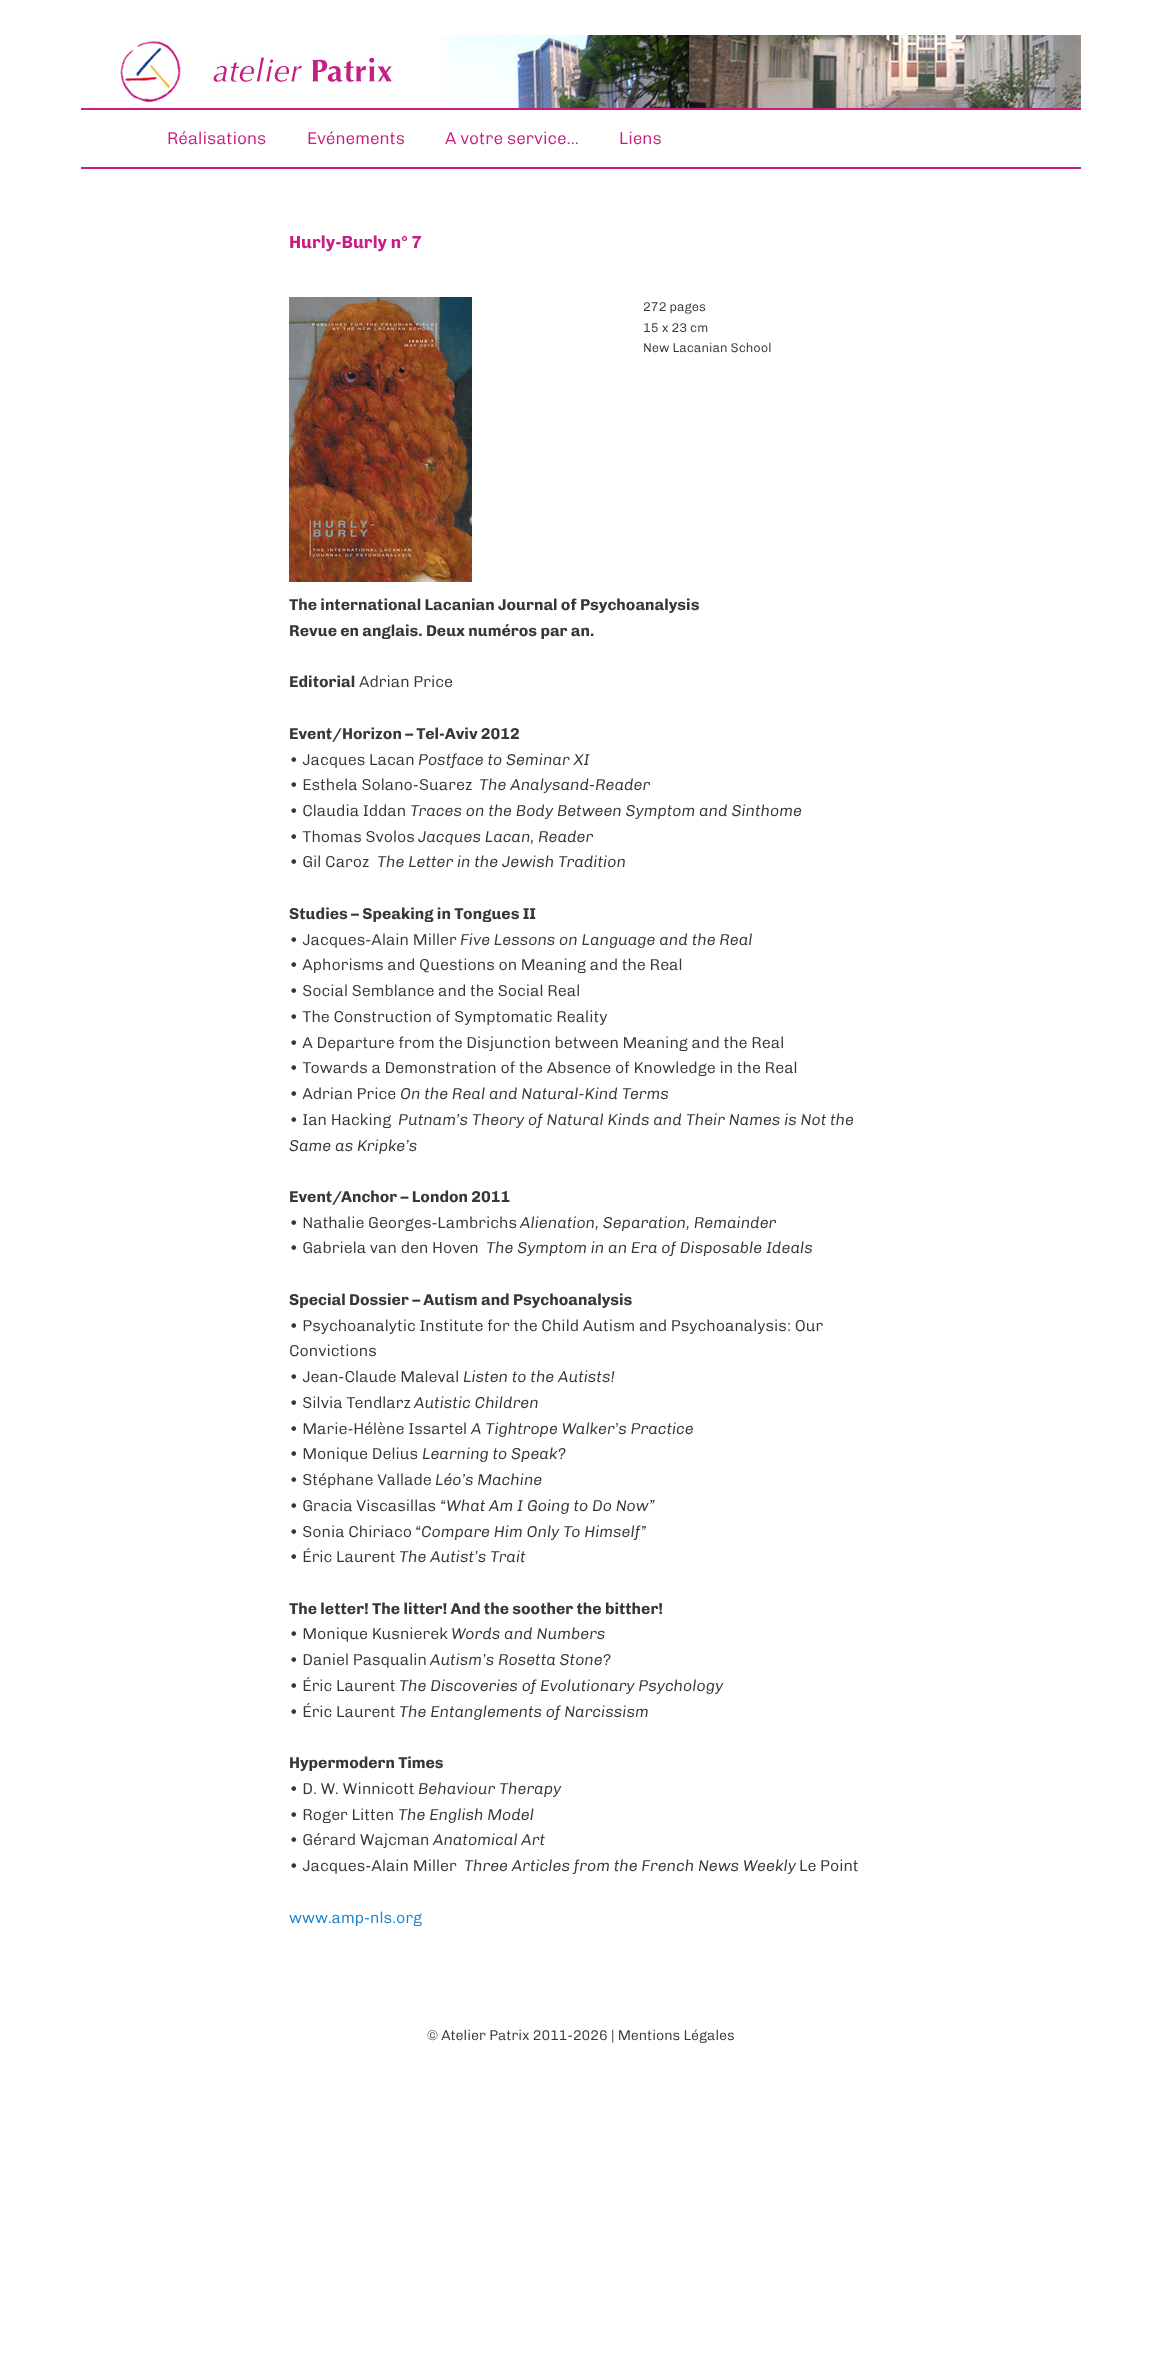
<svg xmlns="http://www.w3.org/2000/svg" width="1162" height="2354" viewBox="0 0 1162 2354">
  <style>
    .t1 { font: 300 17px Chivo; fill: #c71e83; }
    .t2 { font: bold 17.5px Chivo; fill: #c71e83; }
    .t3 { font: 300 12.75px Chivo; fill: #373737; }
    .t4 { font: bold 15.85px Chivo; fill: #373737; }
    .t5 { font: 300 15.85px Chivo; fill: #373737; }
    .t6 { font: italic 300 15.85px Chivo; fill: #373737; }
    .t7 { font: 300 15.85px Chivo; fill: #1982d1; }
    .t8 { font: 300 14.1px Chivo; fill: #373737; }
  </style>
  <rect width="100%" height="100%" fill="#fff"/>
  <image x="120" y="41" width="272" height="62" href="images/1.png"/>
  <image x="441" y="35" width="640" height="73" href="images/2.png"/>
  <rect x="81" y="108" width="1000" height="2" fill="#c71e83"/>
  <rect x="81" y="167" width="1000" height="2" fill="#c71e83"/>
  <text x="167" y="144" class="t1">Réalisations</text>
  <text x="307" y="144" class="t1">Evénements</text>
  <text x="445" y="144" class="t1">A votre service…</text>
  <text x="619" y="144" class="t1">Liens</text>
  <text x="289" y="248" class="t2">Hurly-Burly n° 7</text>
  <image x="289" y="297" width="183" height="285" href="images/3.png"/>
  <text x="643" y="311" class="t3">272 pages</text>
  <text x="643" y="332" class="t3">15 x 23 cm</text>
  <text x="643" y="352" class="t3">New Lacanian School</text>
  <text x="289" y="610" class="t4">The international Lacanian Journal of Psychoanalysis</text>
  <text x="289" y="636" class="t4">Revue en anglais. Deux numéros par an.</text>
  <text x="289" y="687" class="t4">Editorial</text>
  <text x="359" y="687" class="t5">Adrian Price</text>
  <text x="289" y="739" class="t4">Event/Horizon – Tel-Aviv 2012</text>
  <text x="289" y="765" class="t5">• Jacques Lacan</text>
  <text x="418" y="765" class="t6">Postface to Seminar XI</text>
  <text x="289" y="790" class="t5">• Esthela Solano-Suarez</text>
  <text x="479" y="790" class="t6">The Analysand-Reader</text>
  <text x="289" y="816" class="t5">• Claudia Iddan</text>
  <text x="410" y="816" class="t6">Traces on the Body Between Symptom and Sinthome</text>
  <text x="289" y="842" class="t5">• Thomas Svolos</text>
  <text x="418" y="842" class="t6">Jacques Lacan, Reader</text>
  <text x="289" y="867" class="t5">• Gil Caroz</text>
  <text x="377" y="867" class="t6">The Letter in the Jewish Tradition</text>
  <text x="289" y="919" class="t4">Studies – Speaking in Tongues II</text>
  <text x="289" y="945" class="t5">• Jacques-Alain Miller</text>
  <text x="460" y="945" class="t6">Five Lessons on Language and the Real</text>
  <text x="289" y="970" class="t5">• Aphorisms and Questions on Meaning and the Real</text>
  <text x="289" y="996" class="t5">• Social Semblance and the Social Real</text>
  <text x="289" y="1022" class="t5">• The Construction of Symptomatic Reality</text>
  <text x="289" y="1048" class="t5">• A Departure from the Disjunction between Meaning and the Real</text>
  <text x="289" y="1073" class="t5">• Towards a Demonstration of the Absence of Knowledge in the Real</text>
  <text x="289" y="1099" class="t5">• Adrian Price</text>
  <text x="400" y="1099" class="t6">On the Real and Natural-Kind Terms</text>
  <text x="289" y="1125" class="t5">• Ian Hacking</text>
  <text x="398" y="1125" class="t6">Putnam’s Theory of Natural Kinds and Their Names is Not the</text>
  <text x="289" y="1151" class="t6">Same as Kripke’s</text>
  <text x="289" y="1202" class="t4">Event/Anchor – London 2011</text>
  <text x="289" y="1228" class="t5">• Nathalie Georges-Lambrichs</text>
  <text x="520" y="1228" class="t6">Alienation, Separation, Remainder</text>
  <text x="289" y="1253" class="t5">• Gabriela van den Hoven</text>
  <text x="486" y="1253" class="t6">The Symptom in an Era of Disposable Ideals</text>
  <text x="289" y="1305" class="t4">Special Dossier – Autism and Psychoanalysis</text>
  <text x="289" y="1331" class="t5">• Psychoanalytic Institute for the Child Autism and Psychoanalysis: Our</text>
  <text x="289" y="1356" class="t5">Convictions</text>
  <text x="289" y="1382" class="t5">• Jean-Claude Maleval</text>
  <text x="463" y="1382" class="t6">Listen to the Autists!</text>
  <text x="289" y="1408" class="t5">• Silvia Tendlarz</text>
  <text x="414" y="1408" class="t6">Autistic Children</text>
  <text x="289" y="1434" class="t5">• Marie-Hélène Issartel</text>
  <text x="471" y="1434" class="t6">A Tightrope Walker’s Practice</text>
  <text x="289" y="1459" class="t5">• Monique Delius</text>
  <text x="422" y="1459" class="t6">Learning to Speak?</text>
  <text x="289" y="1485" class="t5">• Stéphane Vallade</text>
  <text x="435" y="1485" class="t6">Léo’s Machine</text>
  <text x="289" y="1511" class="t5">• Gracia Viscasillas</text>
  <text x="440" y="1511" class="t6">“What Am I Going to Do Now”</text>
  <text x="289" y="1537" class="t5">• Sonia Chiriaco</text>
  <text x="415" y="1537" class="t6">“Compare Him Only To Himself”</text>
  <text x="289" y="1562" class="t5">• Éric Laurent</text>
  <text x="399" y="1562" class="t6">The Autist’s Trait</text>
  <text x="289" y="1614" class="t4">The letter! The litter! And the soother the bitther!</text>
  <text x="289" y="1639" class="t5">• Monique Kusnierek</text>
  <text x="451" y="1639" class="t6">Words and Numbers</text>
  <text x="289" y="1665" class="t5">• Daniel Pasqualin</text>
  <text x="430" y="1665" class="t6">Autism’s Rosetta Stone?</text>
  <text x="289" y="1691" class="t5">• Éric Laurent</text>
  <text x="399" y="1691" class="t6">The Discoveries of Evolutionary Psychology</text>
  <text x="289" y="1717" class="t5">• Éric Laurent</text>
  <text x="399" y="1717" class="t6">The Entanglements of Narcissism</text>
  <text x="289" y="1768" class="t4">Hypermodern Times</text>
  <text x="289" y="1794" class="t5">• D. W. Winnicott</text>
  <text x="418" y="1794" class="t6">Behaviour Therapy</text>
  <text x="289" y="1820" class="t5">• Roger Litten</text>
  <text x="398" y="1820" class="t6">The English Model</text>
  <text x="289" y="1845" class="t5">• Gérard Wajcman</text>
  <text x="433" y="1845" class="t6">Anatomical Art</text>
  <text x="289" y="1871" class="t5">• Jacques-Alain Miller</text>
  <text x="464" y="1871" class="t6">Three Articles from the French News Weekly</text>
  <text x="799" y="1871" class="t5">Le Point</text>
  <text x="289" y="1923" class="t7">www.amp-nls.org</text>
  <text x="427" y="2040" class="t8">© Atelier Patrix 2011-2026 | Mentions Légales</text>
</svg>
